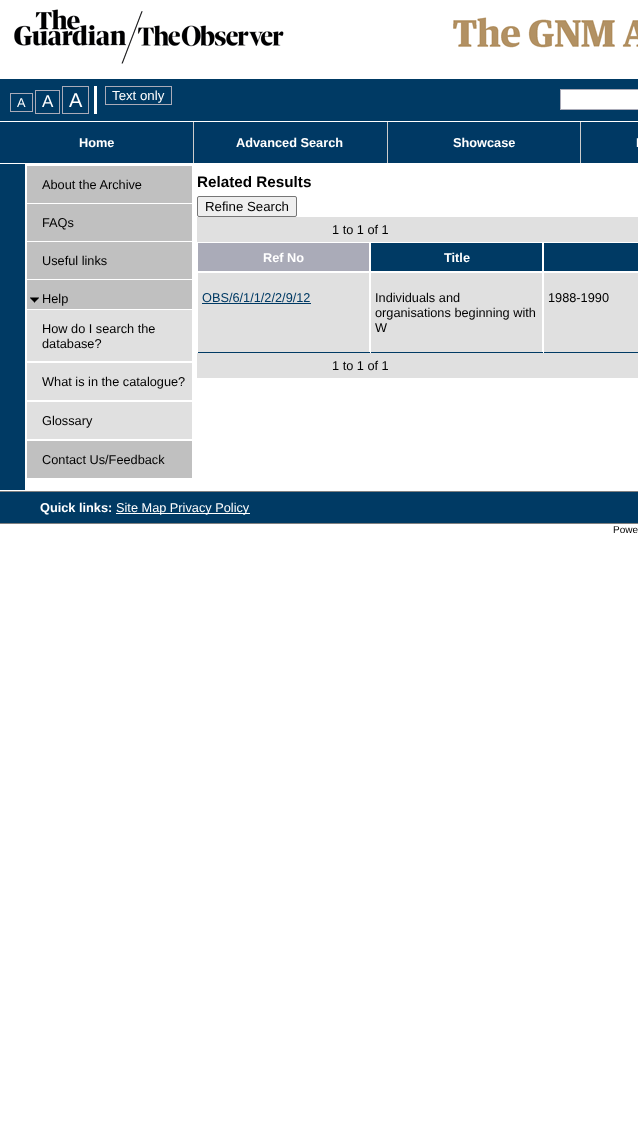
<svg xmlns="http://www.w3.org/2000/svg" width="638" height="1147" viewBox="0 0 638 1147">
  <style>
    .t1 { font: 12.75px Liberation Sans; fill: #fff; }
    .t2 { font: 17px Liberation Sans; fill: #fff; }
    .t3 { font: 20px Liberation Sans; fill: #fff; }
    .t4 { font: 13.25px Liberation Sans; fill: #fff; }
    .t5 { font: bold 12.75px Liberation Sans; fill: #fff; }
    .t6 { font: 12.75px Liberation Sans; fill: #000; }
    .t7 { font: bold 15.25px Liberation Sans; fill: #000; }
    .t8 { font: 13.25px Liberation Sans; fill: #000; }
    .t9 { font: 12.75px Liberation Sans; fill: #003a64; }
    .t10 { font: 10px Liberation Sans; fill: #000; }
  </style>
  <rect width="100%" height="100%" fill="#fff"/>
  <image x="14" y="9" width="624" height="55" href="images/1.png"/>
  <rect x="0" y="79" width="638" height="42" fill="#003a64"/>
  <rect x="94" y="86" width="3" height="28" fill="#fff"/>
  <rect x="10.5" y="93.5" width="22" height="18" fill="none" stroke="#aaabb8"/>
  <text x="17" y="107" class="t1">A</text>
  <rect x="35.5" y="90.5" width="24" height="23" fill="none" stroke="#aaabb8"/>
  <text x="42" y="107" class="t2">A</text>
  <rect x="62.5" y="86.5" width="26" height="27" fill="none" stroke="#aaabb8"/>
  <text x="69" y="107" class="t3">A</text>
  <rect x="105.5" y="86.5" width="66" height="18" fill="none" stroke="#aaabb8"/>
  <text x="112" y="100" class="t4">Text only</text>
  <rect x="560.5" y="89.5" width="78" height="20" fill="#fff" stroke="#aaabb8"/>
  <rect x="0" y="122" width="193" height="41" fill="#003964"/>
  <rect x="193" y="122" width="1" height="41" fill="#ccc"/>
  <text x="79" y="147" class="t5">Home</text>
  <rect x="194" y="122" width="193" height="41" fill="#003964"/>
  <rect x="387" y="122" width="1" height="41" fill="#ccc"/>
  <text x="236" y="147" class="t5">Advanced Search</text>
  <rect x="388" y="122" width="192" height="41" fill="#003964"/>
  <rect x="580" y="122" width="1" height="41" fill="#ccc"/>
  <text x="453" y="147" class="t5">Showcase</text>
  <rect x="581" y="122" width="57" height="41" fill="#003964"/>
  <text x="636" y="147" class="t5">I</text>
  <rect x="0" y="164" width="25" height="326" fill="#003a64"/>
  <rect x="27" y="166" width="165" height="37" fill="#c0c0c0"/>
  <text x="42" y="189" class="t6">About the Archive</text>
  <rect x="27" y="204" width="165" height="37" fill="#c0c0c0"/>
  <text x="42" y="227" class="t6">FAQs</text>
  <rect x="27" y="242" width="165" height="37" fill="#c0c0c0"/>
  <text x="42" y="265" class="t6">Useful links</text>
  <rect x="27" y="280" width="165" height="29" fill="#c0c0c0"/>
  <image x="30" y="297" width="9" height="6" href="images/2.png"/>
  <text x="42" y="303" class="t6">Help</text>
  <rect x="27" y="310" width="165" height="51" fill="#e0e0e0"/>
  <text x="42" y="333" class="t6">How do I search the</text>
  <text x="42" y="348" class="t6">database?</text>
  <rect x="27" y="363" width="165" height="37" fill="#e0e0e0"/>
  <text x="42" y="386" class="t6">What is in the catalogue?</text>
  <rect x="27" y="402" width="165" height="37" fill="#e0e0e0"/>
  <text x="42" y="425" class="t6">Glossary</text>
  <rect x="27" y="441" width="165" height="37" fill="#c0c0c0"/>
  <text x="42" y="464" class="t6">Contact Us/Feedback</text>
  <text x="197" y="187" class="t7">Related Results</text>
  <rect x="197.5" y="196.5" width="99" height="20" rx="1.5" fill="#efefef" stroke="#767676"/>
  <text x="205" y="211" class="t8">Refine Search</text>
  <rect x="197" y="217" width="441" height="25" fill="#e0e0e0"/>
  <text x="332" y="234" class="t6">1 to 1 of 1</text>
  <rect x="198" y="243" width="171" height="28" fill="#aaabb8"/>
  <text x="263" y="262" class="t5">Ref No</text>
  <rect x="371" y="243" width="171" height="28" fill="#003a64"/>
  <text x="444" y="262" class="t5">Title</text>
  <rect x="544" y="243" width="94" height="28" fill="#003a64"/>
  <rect x="198" y="273" width="171" height="79" fill="#e0e0e0"/>
  <rect x="197" y="352" width="441" height="1" fill="#003a64"/>
  <rect x="197" y="352" width="1" height="1" fill="#fff"/>
  <text x="202" y="302" class="t9">OBS/6/1/1/2/2/9/12</text>
  <rect x="202" y="303" width="109" height="1" fill="#003a64"/>
  <rect x="371" y="273" width="171" height="79" fill="#e0e0e0"/>
  <rect x="370" y="352" width="1" height="1" fill="#fff"/>
  <text x="375" y="302" class="t6">Individuals and</text>
  <text x="375" y="317" class="t6">organisations beginning with</text>
  <text x="375" y="332" class="t6">W</text>
  <rect x="544" y="273" width="94" height="79" fill="#e0e0e0"/>
  <rect x="543" y="352" width="1" height="1" fill="#fff"/>
  <text x="548" y="302" class="t6">1988-1990</text>
  <rect x="197" y="353" width="441" height="25" fill="#e0e0e0"/>
  <text x="332" y="370" class="t6">1 to 1 of 1</text>
  <rect x="0" y="492" width="638" height="31" fill="#003a64"/>
  <rect x="0" y="491" width="638" height="1" fill="#808080"/>
  <rect x="0" y="523" width="638" height="1" fill="#808080"/>
  <text x="40" y="512" class="t5">Quick links:</text>
  <rect x="116" y="513" width="134" height="1" fill="#fff"/>
  <text x="116" y="512" class="t1">Site Map Privacy Policy</text>
  <text x="613" y="533" class="t10">Powe</text>
</svg>
